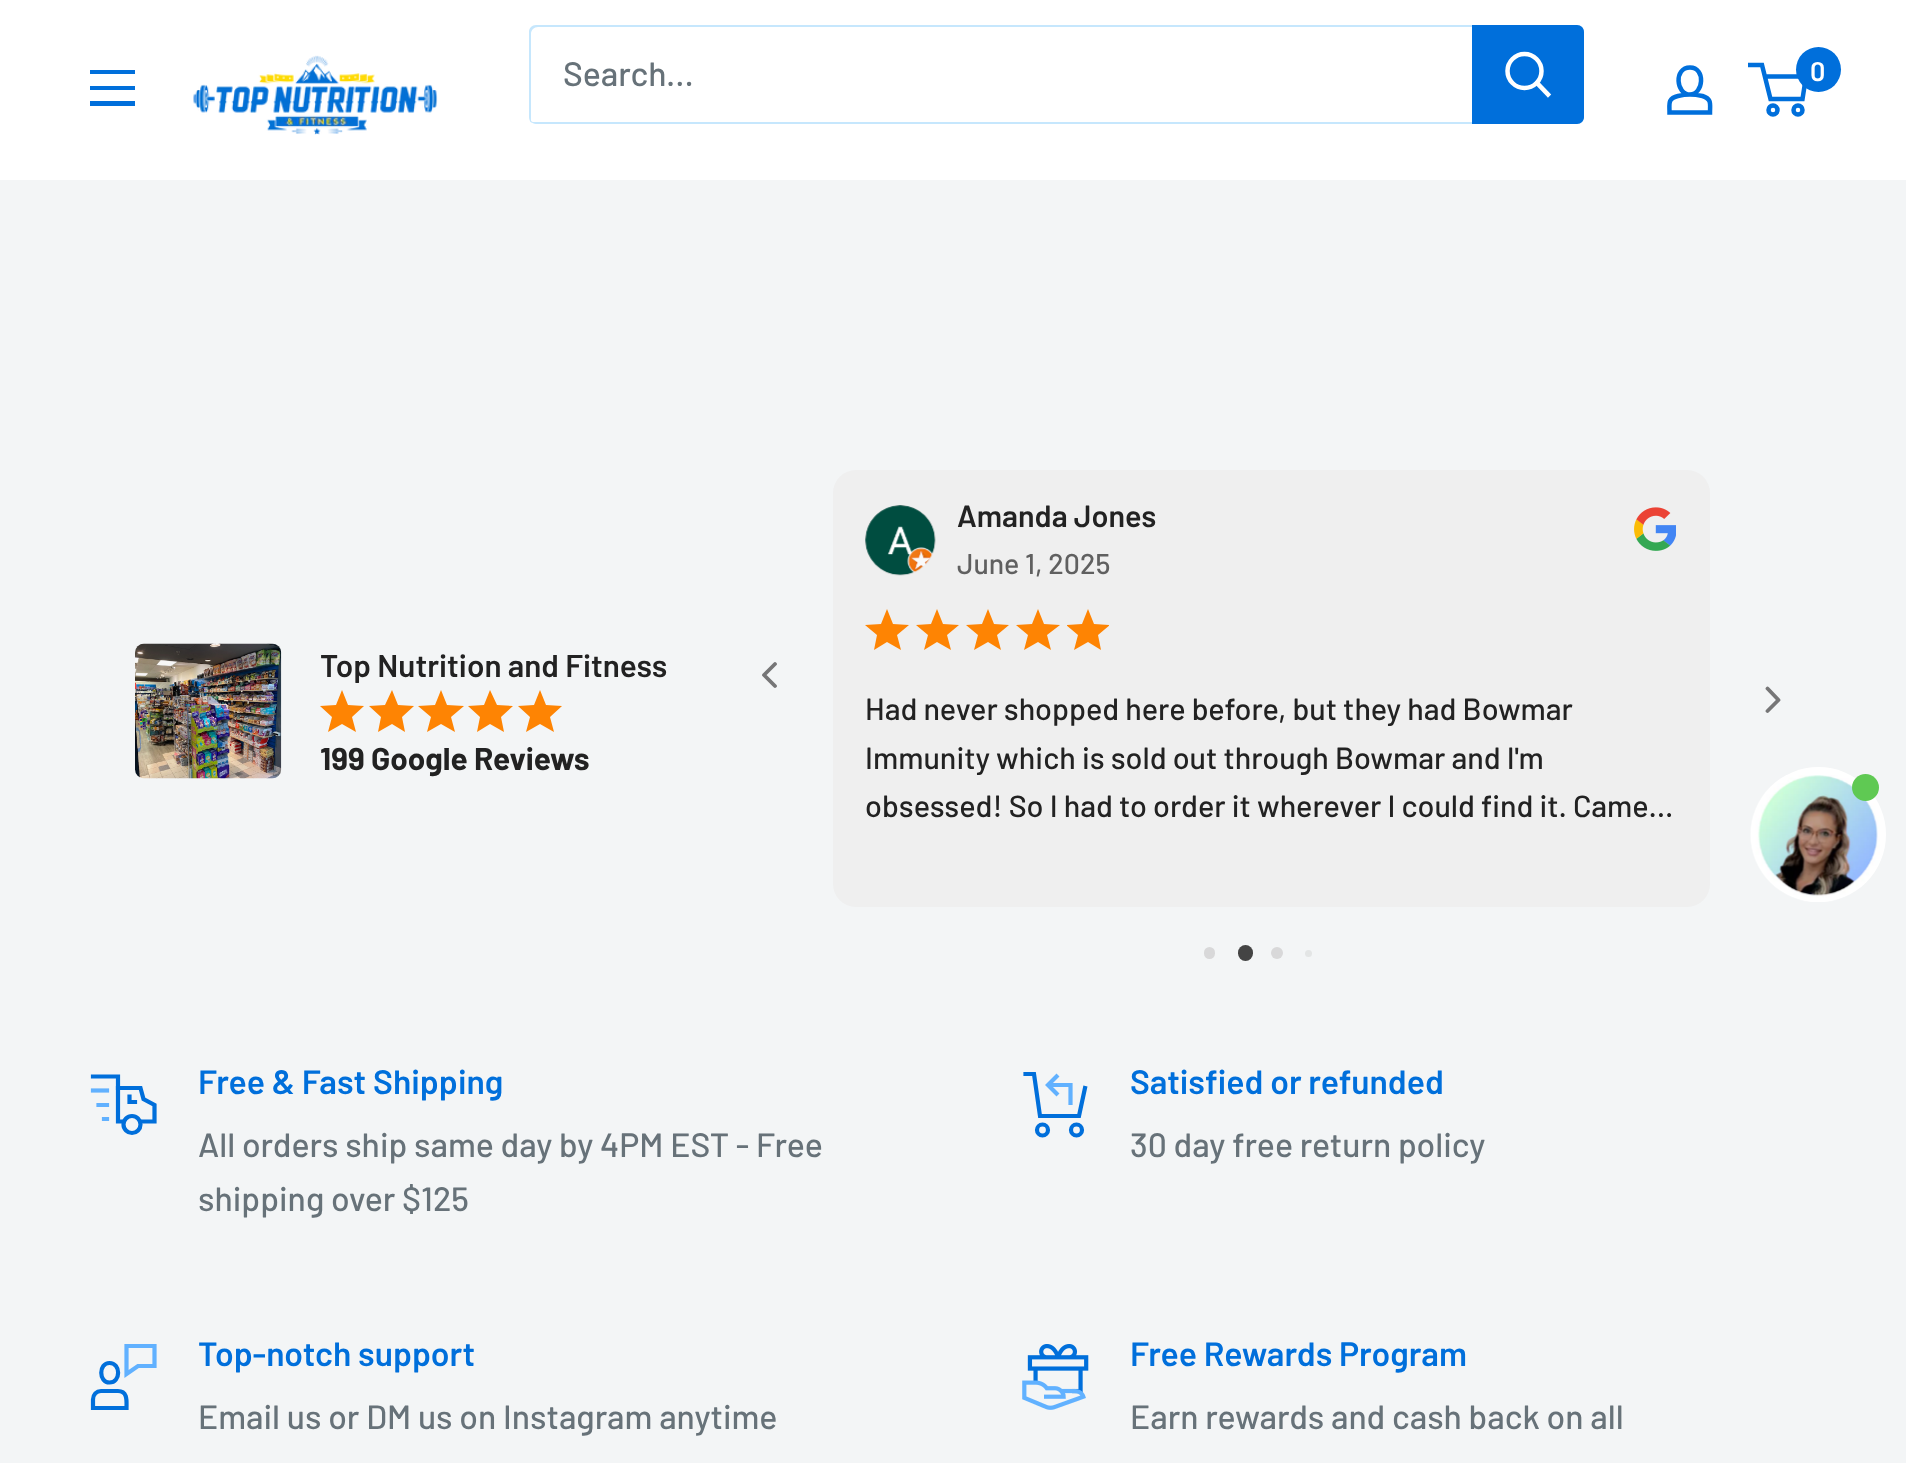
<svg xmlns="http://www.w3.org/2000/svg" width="1906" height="1463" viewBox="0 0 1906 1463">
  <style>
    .t1 { font: 500 33.75px Barlow; fill: #677279; }
    .t2 { font: 600 27px Barlow; fill: #fff; }
    .t3 { font: 600 31.5px Barlow; fill: #222; }
    .t4 { font: bold 31.5px Barlow; fill: #222; }
    .t5 { font: 600 30.55px Barlow; fill: #222; }
    .t6 { font: 500 28.5px Barlow; fill: #606060; }
    .t7 { font: 500 30.55px Barlow; fill: #222; }
    .t8 { font: 600 33.75px Barlow; fill: #006fdb; }
  </style>
  <defs>
    <clipPath id="clip1"><rect x="1067" y="608" width="42" height="45"/></clipPath>
  </defs>
  <rect width="100%" height="100%" fill="#f3f5f6"/>
  <rect x="0" y="0" width="1906" height="180" fill="#fff"/>
  <path d="M90 101H135V106H90ZM90 70H135V74H90ZM90 86H135V90H90Z" fill="#006fdb" fill-rule="evenodd"/>
  <image x="193" y="55" width="245" height="80" href="images/1.png"/>
  <path d="M530 121C532 123 534 124 536 124H1577C1581 124 1584 121 1584 117V32C1584 30 1583 28 1581 27L1582 29V115C1582 118 1579 122 1575 122H533Z" fill="#c6e7fd"/>
  <path d="M538 27H1580L1583 28C1581 26 1579 25 1577 25H536C532 25 529 28 529 32V117C529 119 530 122 532 123C531 122 531 120 531 119V34C531 30 534 27 538 27Z" fill="#41aef74d"/>
  <text x="563" y="86" class="t1">Search...</text>
  <path d="M1472 25H1577C1581 25 1584 28 1584 32V117C1584 121 1581 124 1577 124H1472Z" fill="#006fdb"/>
  <path d="M1548 94.5L1537 83" fill="none" stroke="#fff" stroke-width="4.5" stroke-linecap="square"/>
  <circle cx="1524.5" cy="71" r="17" fill="none" stroke="#fff" stroke-width="4.5"/>
  <path d="M1690 94.5C1694 94.5 1698 95 1702.5 96C1712 99 1710 104 1710 112.5H1669.5C1669.5 103.5 1667.5 98.5 1678 96C1682 95 1686 94.5 1690 94.5ZM1690 94.5C1676 94.5 1673.5 67.5 1690 67.5C1706 67.5 1703.5 94.5 1690 94.5Z" fill="none" stroke="#006fdb" stroke-width="4.5"/>
  <circle cx="1773" cy="110" r="4.5" fill="none" stroke="#006fdb" stroke-width="4.5"/>
  <circle cx="1798" cy="110" r="4.5" fill="none" stroke="#006fdb" stroke-width="4.5"/>
  <path d="M1764.5 76.5H1806L1802.5 99H1770.5L1762 65H1748" fill="none" stroke="#006fdb" stroke-width="4.5"/>
  <circle cx="1818.5" cy="69.5" r="22.5" fill="#006fdb"/>
  <text x="1810" y="81" class="t2">0</text>
  <image x="135" y="643" width="147" height="136" href="images/2.png"/>
  <text x="320" y="677" class="t3">Top Nutrition and Fitness</text>
  <path d="M342 690L348 705L364 706L352 717L356 732L342 724L328 732L332 717L320 706L336 705Z" fill="#fe8403" fill-rule="evenodd"/>
  <path d="M392 690L398 705L414 706L402 717L405 732L392 724L378 732L381 717L369 706L385 705Z" fill="#fe8403" fill-rule="evenodd"/>
  <path d="M441 690L447 705L464 706L451 717L455 732L441 724L427 732L431 717L418 706L435 705Z" fill="#fe8403" fill-rule="evenodd"/>
  <path d="M490 690L497 705L513 706L501 717L504 732L490 724L477 732L480 717L468 706L484 705Z" fill="#fe8403" fill-rule="evenodd"/>
  <path d="M540 690L546 705L562 706L550 717L554 732L540 724L526 732L530 717L518 706L534 705Z" fill="#fe8403" fill-rule="evenodd"/>
  <text x="320" y="770" class="t4">199 Google Reviews</text>
  <path d="M775 686L764 675L775 664" fill="none" stroke="#767677" stroke-width="3.8" stroke-linecap="round" stroke-linejoin="round"/>
  <rect x="833" y="470" width="877" height="437" rx="23" fill="#efefef"/>
  <image x="865" y="505" width="71" height="71" href="images/3.png"/>
  <text x="957" y="527" class="t5">Amanda Jones</text>
  <text x="957" y="574" class="t6">June 1, 2025</text>
  <image x="1634" y="507" width="42" height="44" href="images/4.png"/>
  <path d="M887 609L893 624L909 625L897 635L901 650L887 642L874 650L877 635L865 625L881 624Z" fill="#fe8403" fill-rule="evenodd"/>
  <path d="M937 609L943 624L959 625L947 635L951 650L937 642L924 650L928 635L916 625L931 624Z" fill="#fe8403" fill-rule="evenodd"/>
  <path d="M988 609L994 624L1009 625L997 635L1001 650L988 642L974 650L978 635L966 625L982 624Z" fill="#fe8403" fill-rule="evenodd"/>
  <path d="M1038 609L1044 624L1060 625L1047 635L1051 650L1038 642L1024 650L1028 635L1016 625L1032 624Z" fill="#fe8403" fill-rule="evenodd"/>
  <g clip-path="url(#clip1)">
    <path d="M1088 609L1094 624L1110 625L1098 635L1101 650L1088 642L1074 650L1078 635L1066 625L1082 624Z" fill="#fe8403" fill-rule="evenodd"/>
  </g>
  <text x="865" y="720" class="t7">Had never shopped here before, but they had Bowmar</text>
  <text x="865" y="769" class="t7">Immunity which is sold out through Bowmar and I'm</text>
  <text x="865" y="817" class="t7">obsessed! So I had to order it wherever I could find it. Came…</text>
  <path d="M1767.5 711L1778.5 700L1767.5 688.5" fill="none" stroke="#767677" stroke-width="3.8" stroke-linecap="round" stroke-linejoin="round"/>
  <rect x="1204" y="947" width="11" height="12" rx="5.5" fill="#d8d8d9"/>
  <rect x="1238" y="945" width="15" height="16" rx="7.5" fill="#444"/>
  <circle cx="1277" cy="953" r="6" fill="#d8d8d9"/>
  <circle cx="1308.5" cy="953.5" r="3.5" fill="#e3e5e5"/>
  <circle cx="1818.5" cy="834.5" r="67.5" fill="#fff"/>
  <image x="1750" y="775" width="130" height="127" href="images/5.png"/>
  <circle cx="1865.5" cy="787.5" r="13.5" fill="#5fc953"/>
  <path d="M93 1090.5H107" fill="none" stroke="#61b1ff" stroke-width="4.2" stroke-linecap="square"/>
  <path d="M140 1121.5H154.5V1105L143.5 1099L140.5 1088H118V1121.5H124" fill="none" stroke="#006fdb" stroke-width="4.2"/>
  <path d="M93 1076.5H118V1088" fill="none" stroke="#006fdb" stroke-width="4.2" stroke-linecap="square"/>
  <path d="M129.5 1096.5V1102H135" fill="none" stroke="#006fdb" stroke-width="4.2" stroke-linecap="square"/>
  <path d="M107 1105H98.5M107 1119H104" fill="none" stroke="#61b1ff" stroke-width="4.2" stroke-linecap="square"/>
  <circle cx="132" cy="1124.5" r="8.5" fill="none" stroke="#006fdb" stroke-width="4.2"/>
  <text x="198" y="1094" class="t8">Free &amp; Fast Shipping</text>
  <text x="198" y="1157" class="t1">All orders ship same day by 4PM EST - Free</text>
  <text x="198" y="1211" class="t1">shipping over $125</text>
  <path d="M1048 1085H1070.5V1105" fill="none" stroke="#61b1ff" stroke-width="4.2"/>
  <path d="M1056.5 1093.5L1048 1085L1056.5 1076.5" fill="none" stroke="#61b1ff" stroke-width="4.2" stroke-linecap="square"/>
  <path d="M1085 1088L1079 1116H1040L1034 1074H1025.5" fill="none" stroke="#006fdb" stroke-width="4.2" stroke-linecap="square"/>
  <circle cx="1042.5" cy="1130" r="5.5" fill="none" stroke="#006fdb" stroke-width="4.2"/>
  <circle cx="1076.5" cy="1130" r="5.5" fill="none" stroke="#006fdb" stroke-width="4.2"/>
  <text x="1130" y="1094" class="t8">Satisfied or refunded</text>
  <text x="1130" y="1157" class="t1">30 day free return policy</text>
  <path d="M118 1391H101C96.5 1391 93 1394.5 93 1399.5V1408H126.5C126.5 1401.5 128 1391 118 1391ZM109.5 1382.5C98.5 1382.5 98.5 1363 109.5 1363C121 1363 121 1382.5 109.5 1382.5Z" fill="none" stroke="#006fdb" stroke-width="4.2" stroke-linecap="square"/>
  <path d="M126.5 1346V1374L138 1366H154.5V1346Z" fill="none" stroke="#61b1ff" stroke-width="4.2" stroke-linecap="square"/>
  <text x="198" y="1366" class="t8">Top-notch support</text>
  <text x="198" y="1429" class="t1">Email us or DM us on Instagram anytime</text>
  <image x="1022" y="1344" width="67" height="66" href="images/6.png"/>
  <text x="1130" y="1366" class="t8">Free Rewards Program</text>
  <text x="1130" y="1429" class="t1">Earn rewards and cash back on all</text>
</svg>
